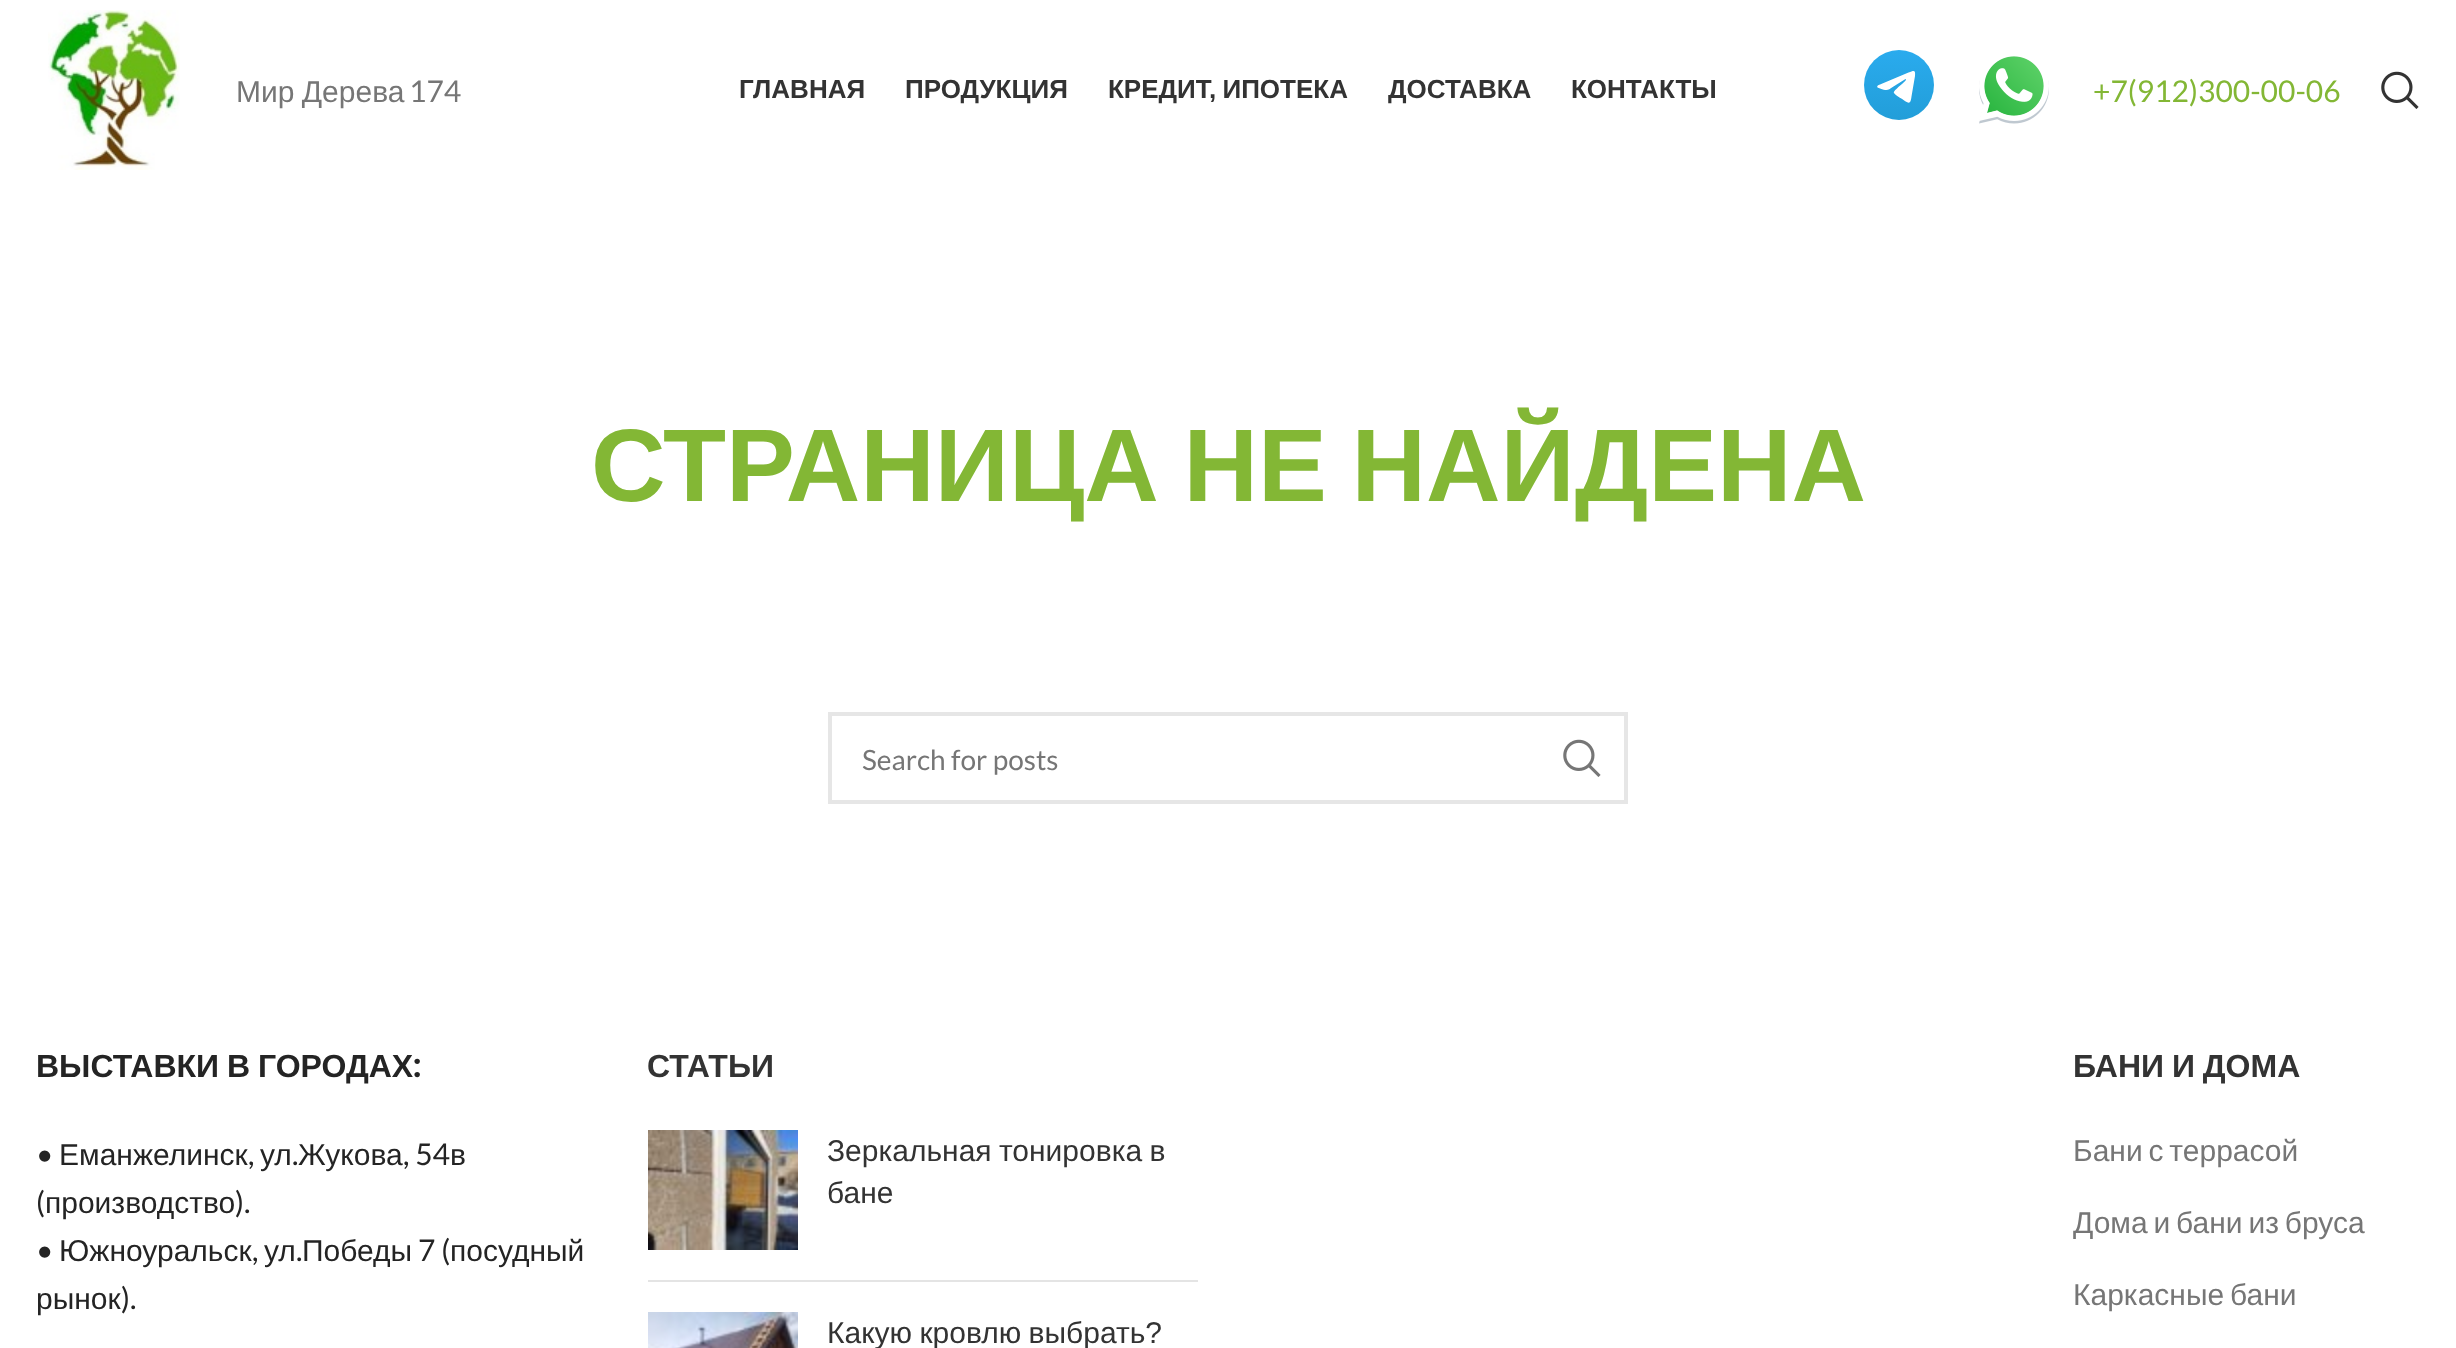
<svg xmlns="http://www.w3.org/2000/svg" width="2456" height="1348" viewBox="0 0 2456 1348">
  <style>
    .t1 { font: 30px Liberation Sans; fill: #767676; }
    .t2 { font: 30px Lato; fill: #767676; }
    .t3 { font: bold 26px Liberation Sans; fill: #333; }
    .t4 { font: 30px Lato; fill: #83b735; }
    .t5 { font: bold 103.2px Liberation Sans; fill: #83b735; }
    .t6 { font: 28px Lato; fill: #767676; }
    .t7 { font: bold 32px Liberation Sans; fill: #242424; }
    .t8 { font: 600 32px Poppins; fill: #242424; }
    .t9 { font: 30px Lato; fill: #242424; }
    .t10 { font: 30px Liberation Sans; fill: #242424; }
    .t11 { font: bold 32px Liberation Sans; fill: #333; }
    .t12 { font: 30px Liberation Sans; fill: #333; }
  </style>
  <defs>
    <linearGradient id="g1" gradientUnits="userSpaceOnUse" x1="1899" y1="50" x2="1899" y2="119"><stop offset="0" stop-color="#2aabee"/><stop offset="1" stop-color="#229ed9"/></linearGradient>
  </defs>
  <rect width="100%" height="100%" fill="#fff"/>
  <image x="48" y="10" width="132" height="160" href="images/1.png"/>
  <text x="236" y="102" word-spacing="-1" class="t1">Мир Дерева</text>
  <text x="409" y="102" class="t2">174</text>
  <text x="739" y="98" class="t3">ГЛАВНАЯ</text>
  <text x="905" y="98" class="t3">ПРОДУКЦИЯ</text>
  <text x="1108" y="98" word-spacing="-1" class="t3">КРЕДИТ, ИПОТЕКА</text>
  <text x="1388" y="98" class="t3">ДОСТАВКА</text>
  <text x="1571" y="98" class="t3">КОНТАКТЫ</text>
  <circle cx="1899" cy="85" r="35" fill="url(#g1)"/>
  <path d="M1880 84.5L1908.5 72.5C1914.5 70 1915.5 70 1915 76L1911.5 96.5C1910.5 104 1909.5 104 1903.5 100C1901.5 98.5 1895 95 1894 93C1892.5 90.5 1906.5 81.5 1906 79.5L1905.5 79L1893.5 86.5C1887.5 90.5 1887.5 91 1880 88.5C1876.5 87.5 1876 86 1880 84.5Z" fill="#fff" fill-rule="evenodd"/>
  <image x="1979" y="56" width="70" height="68" href="images/2.png"/>
  <text x="2093" y="102" class="t4">+7(912)300-00-06</text>
  <image x="2381" y="71" width="38" height="38" href="images/3.png"/>
  <text x="591" y="501" word-spacing="-4" class="t5">СТРАНИЦА НЕ НАЙДЕНА</text>
  <rect x="830" y="714" width="796" height="88" fill="none" stroke="#e6e6e6" stroke-width="4"/>
  <text x="862" y="770" class="t6">Search for posts</text>
  <image x="1563" y="739" width="38" height="38" href="images/4.png"/>
  <text x="36" y="1077" word-spacing="-1" class="t7">ВЫСТАВКИ В ГОРОДАХ</text>
  <text x="413" y="1077" class="t8">:</text>
  <text x="36" y="1165" class="t9">•</text>
  <text x="59" y="1165" class="t10">Еманжелинск</text>
  <text x="260" y="1165" class="t10">ул</text>
  <text x="298" y="1165" class="t10">Жукова</text>
  <text x="403" y="1165" class="t9">, 54</text>
  <text x="450" y="1165" class="t10">в</text>
  <text x="248" y="1165" class="t9">,</text>
  <text x="292" y="1165" class="t9">.</text>
  <text x="36" y="1213" class="t9">(</text>
  <text x="45" y="1213" class="t10">производство</text>
  <text x="235" y="1213" class="t9">).</text>
  <text x="36" y="1261" class="t9">•</text>
  <text x="59" y="1261" class="t10">Южноуральск</text>
  <text x="264" y="1261" class="t10">ул</text>
  <text x="302" y="1261" class="t10">Победы</text>
  <text x="418" y="1261" class="t9">7 (</text>
  <text x="450" y="1261" class="t10">посудный</text>
  <text x="252" y="1261" class="t9">,</text>
  <text x="296" y="1261" class="t9">.</text>
  <text x="36" y="1309" class="t10">рынок</text>
  <text x="121" y="1309" class="t9">).</text>
  <text x="647" y="1077" class="t11">СТАТЬИ</text>
  <rect x="648" y="1280" width="550" height="2" fill="#e4e4e4"/>
  <image x="648" y="1130" width="150" height="120" href="images/5.png"/>
  <text x="827" y="1161" word-spacing="-1" class="t12">Зеркальная тонировка в</text>
  <text x="827" y="1203" class="t12">бане</text>
  <image x="648" y="1312" width="150" height="36" href="images/6.png"/>
  <text x="827" y="1343" word-spacing="-1" class="t12">Какую кровлю выбрать?</text>
  <text x="2073" y="1077" word-spacing="-1" class="t11">БАНИ И ДОМА</text>
  <text x="2073" y="1161" word-spacing="-2.5" class="t1">Бани с террасой</text>
  <text x="2073" y="1233" word-spacing="-2.5" class="t1">Дома и бани из бруса</text>
  <text x="2073" y="1305" word-spacing="-2.5" class="t1">Каркасные бани</text>
</svg>
